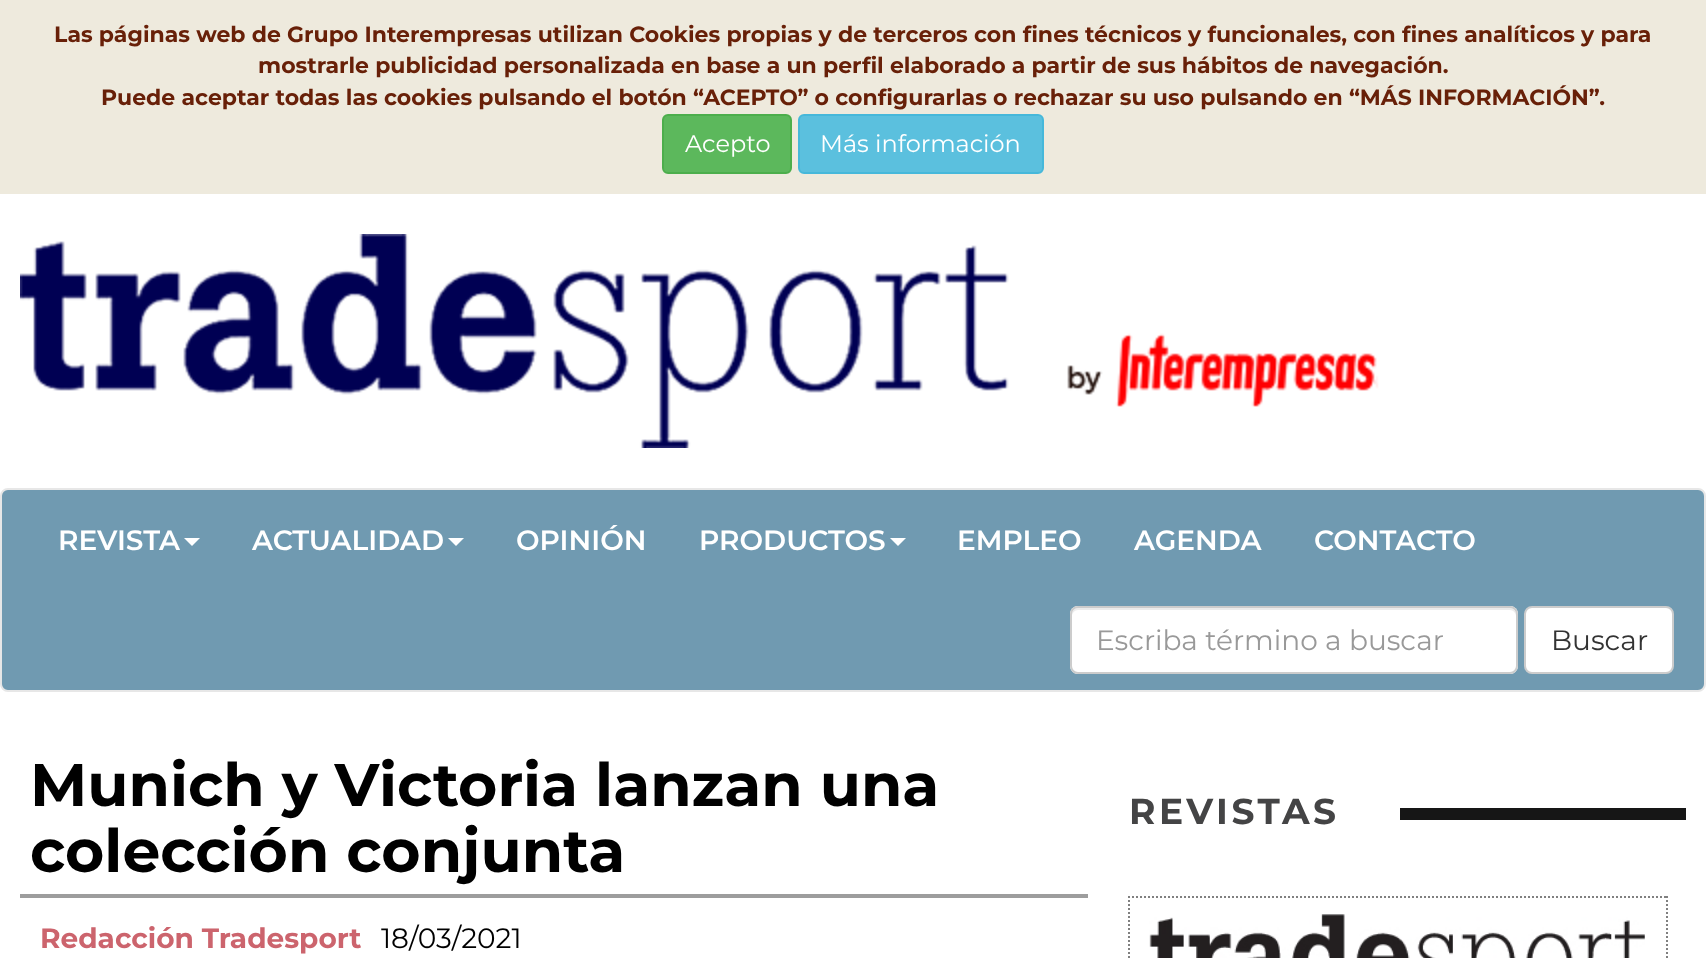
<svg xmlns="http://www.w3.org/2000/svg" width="1706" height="958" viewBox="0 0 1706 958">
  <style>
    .t1 { font: bold 22px Montserrat; fill: #682008; }
    .t2 { font: 24px Montserrat; fill: #fff; }
    .t3 { font: 600 28px Montserrat; fill: #fff; }
    .t4 { font: 28px Montserrat; fill: #999; }
    .t5 { font: 28px Montserrat; fill: #333; }
    .t6 { font: bold 60px Montserrat; fill: #000; }
    .t7 { font: bold 28px Montserrat; fill: #cc646d; }
    .t8 { font: 28px Montserrat; fill: #000; }
    .t9 { font: bold 36px Montserrat; letter-spacing: 3.5px; fill: #444445; }
  </style>
  <rect width="100%" height="100%" fill="#fff"/>
  <rect x="0" y="0" width="1706" height="194" fill="#eeeadd"/>
  <text x="54" y="42" class="t1">Las páginas web de Grupo Interempresas utilizan Cookies propias y de terceros con fines técnicos y funcionales, con fines analíticos y para</text>
  <text x="258" y="73" class="t1">mostrarle publicidad personalizada en base a un perfil elaborado a partir de sus hábitos de navegación.</text>
  <text x="101" y="105" class="t1">Puede aceptar todas las cookies pulsando el botón “ACEPTO” o configurarlas o rechazar su uso pulsando en “MÁS INFORMACIÓN”.</text>
  <rect x="663" y="115" width="128" height="58" rx="5" fill="#5cb85c" stroke="#4cae4c" stroke-width="2"/>
  <text x="685" y="152" class="t2">Acepto</text>
  <rect x="799" y="115" width="244" height="58" rx="5" fill="#5bc0de" stroke="#46b8da" stroke-width="2"/>
  <text x="820" y="152" class="t2">Más información</text>
  <image x="20" y="234" width="1359" height="214" href="images/1.png"/>
  <rect x="1" y="489" width="1704" height="202" rx="7" fill="#709ab1" stroke="#e7e7e7" stroke-width="2"/>
  <text x="58" y="550" class="t3">REVISTA</text>
  <path d="M184 538H200L192 546Z" fill="#fff"/>
  <text x="252" y="550" class="t3">ACTUALIDAD</text>
  <path d="M448 538H464L456 546Z" fill="#fff"/>
  <text x="516" y="550" class="t3">OPINIÓN</text>
  <text x="699" y="550" class="t3">PRODUCTOS</text>
  <path d="M890 538H906L898 546Z" fill="#fff"/>
  <text x="957" y="550" class="t3">EMPLEO</text>
  <text x="1134" y="550" class="t3">AGENDA</text>
  <text x="1314" y="550" class="t3">CONTACTO</text>
  <rect x="1070" y="606" width="448" height="68" rx="8" fill="#fff"/>
  <path d="M1078 610H1510C1513 610 1516 613 1516 616V614C1516 611 1513 608 1510 608H1078C1075 608 1072 611 1072 614V616C1072 613 1075 610 1078 610Z" fill="#ececec"/>
  <rect x="1071" y="607" width="446" height="66" rx="7" fill="none" stroke="#ccc" stroke-width="2"/>
  <text x="1096" y="650" class="t4">Escriba término a buscar</text>
  <rect x="1525" y="607" width="148" height="66" rx="7" fill="#fff" stroke="#ccc" stroke-width="2"/>
  <text x="1551" y="650" class="t5">Buscar</text>
  <rect x="20" y="894" width="1068" height="4" fill="#9d9d9d"/>
  <text x="30" y="806" class="t6">Munich y Victoria lanzan una</text>
  <text x="30" y="872" class="t6">colección conjunta</text>
  <text x="40" y="948" class="t7">Redacción Tradesport</text>
  <text x="381" y="948" class="t8">18/03/2021</text>
  <text x="1129" y="824" class="t9">REVISTAS</text>
  <rect x="1400" y="808" width="286" height="12" fill="#161616"/>
  <path d="M1128 897H1668" fill="none" stroke="#808080" stroke-width="2" stroke-dasharray="2 2"/>
  <path d="M1129 896V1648" fill="none" stroke="#808080" stroke-width="2" stroke-dasharray="2 2"/>
  <image x="1149" y="914" width="496" height="44" href="images/2.png"/>
  <path d="M1667 896V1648" fill="none" stroke="#808080" stroke-width="2" stroke-dasharray="2 2"/>
</svg>
